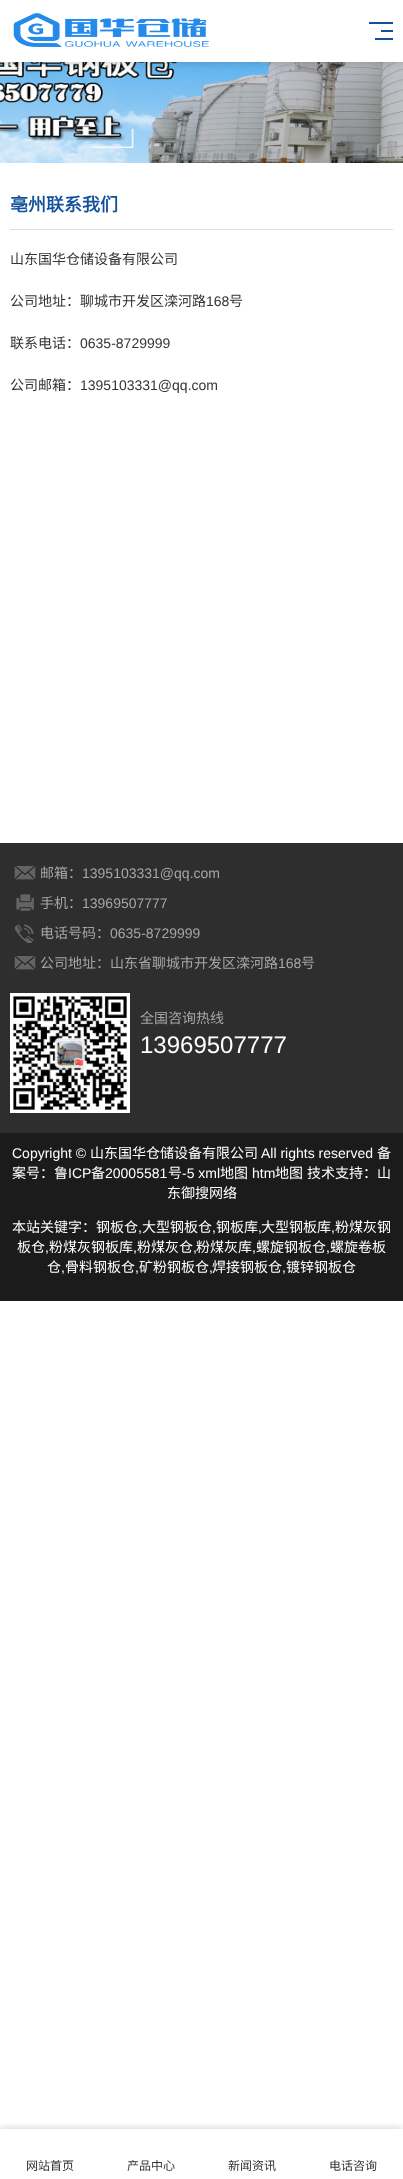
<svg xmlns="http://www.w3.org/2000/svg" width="403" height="2179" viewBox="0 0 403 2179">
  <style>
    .t1 { font: bold 18px Noto Sans CJK SC; fill: #11509b; }
    .t2 { font: 14px Noto Sans CJK SC; fill: #333; }
    .t3 { font: 14px Liberation Sans; fill: #333; }
    .t4 { font: 14px Noto Sans CJK SC; fill: #a8a6a6; }
    .t5 { font: 14px Liberation Sans; fill: #a8a6a6; }
    .t6 { font: 24px Liberation Sans; fill: #fff; }
    .t7 { font: 14px Liberation Sans; fill: #fff; }
    .t8 { font: 14px Noto Sans CJK SC; fill: #fff; }
    .t9 { font: 12px Noto Sans CJK SC; fill: #333; }
  </style>
  <defs>
    <clipPath id="clip1"><rect x="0" y="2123" width="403" height="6"/></clipPath>
  </defs>
  <rect width="100%" height="100%" fill="#fff"/>
  <image x="0" y="62" width="403" height="101" href="images/2.png"/>
  <rect x="0" y="0" width="403" height="62" fill="#00000033" filter="blur(5px)"/>
  <rect x="0" y="0" width="403" height="62" fill="#fff"/>
  <image x="13" y="13" width="196" height="34" href="images/1.png"/>
  <rect x="369" y="22" width="24" height="2" fill="#11509b"/>
  <rect x="381" y="30" width="12" height="2" fill="#11509b"/>
  <rect x="375" y="38" width="18" height="2" fill="#11509b"/>
  <rect x="10" y="229" width="383" height="1" fill="#ddd"/>
  <text x="10" y="211" class="t1">亳州联系我们</text>
  <text x="10" y="264" class="t2">山东国华仓储设备有限公司</text>
  <text x="10" y="306" class="t2">公司地址：聊城市开发区滦河路</text>
  <text x="206" y="306" class="t3">168</text>
  <text x="229" y="306" class="t2">号</text>
  <text x="10" y="348" class="t2">联系电话：</text>
  <text x="80" y="348" class="t3">0635-8729999</text>
  <text x="10" y="390" class="t2">公司邮箱：</text>
  <text x="80" y="390" class="t3">1395103331@qq.com</text>
  <rect x="0" y="843" width="403" height="290" fill="#2e2e2e"/>
  <image x="14" y="866" width="22" height="14" href="images/3.png"/>
  <text x="40" y="878" class="t4">邮箱：</text>
  <text x="82" y="878" class="t5">1395103331@qq.com</text>
  <image x="16" y="894" width="18" height="17" href="images/4.png"/>
  <text x="40" y="908" class="t4">手机：</text>
  <text x="82" y="908" class="t5">13969507777</text>
  <image x="15" y="924" width="19" height="19" href="images/5.png"/>
  <text x="40" y="938" class="t4">电话号码：</text>
  <text x="110" y="938" class="t5">0635-8729999</text>
  <image x="14" y="956" width="22" height="14" href="images/3.png"/>
  <text x="40" y="968" class="t4">公司地址：山东省聊城市开发区滦河路</text>
  <text x="278" y="968" class="t5">168</text>
  <text x="301" y="968" class="t4">号</text>
  <image x="10" y="993" width="120" height="120" href="images/6.png"/>
  <text x="140" y="1023" class="t4">全国咨询热线</text>
  <text x="140" y="1053" class="t6">13969507777</text>
  <rect x="0" y="1133" width="403" height="168" fill="#1b1b1b"/>
  <text x="12" y="1158" class="t7">Copyright ©</text>
  <text x="90" y="1158" class="t8">山东国华仓储设备有限公司</text>
  <text x="261" y="1158" class="t7">All rights reserved</text>
  <text x="377" y="1158" class="t8">备</text>
  <text x="12" y="1178" class="t8">案号：鲁</text>
  <text x="68" y="1178" class="t7">ICP</text>
  <text x="91" y="1178" class="t8">备</text>
  <text x="105" y="1178" class="t7">20005581</text>
  <text x="168" y="1178" class="t8">号</text>
  <text x="182" y="1178" class="t7">-5 xml</text>
  <text x="220" y="1178" class="t8">地图</text>
  <text x="252" y="1178" class="t7">htm</text>
  <text x="275" y="1178" class="t8">地图</text>
  <text x="307" y="1178" class="t8">技术支持：山</text>
  <text x="167" y="1198" class="t8">东御搜网络</text>
  <text x="12" y="1232" class="t8">本站关键字：钢板仓</text>
  <text x="138" y="1232" class="t7">,</text>
  <text x="142" y="1232" class="t8">大型钢板仓</text>
  <text x="212" y="1232" class="t7">,</text>
  <text x="216" y="1232" class="t8">钢板库</text>
  <text x="258" y="1232" class="t7">,</text>
  <text x="261" y="1232" class="t8">大型钢板库</text>
  <text x="331" y="1232" class="t7">,</text>
  <text x="335" y="1232" class="t8">粉煤灰钢</text>
  <text x="17" y="1252" class="t8">板仓</text>
  <text x="45" y="1252" class="t7">,</text>
  <text x="49" y="1252" class="t8">粉煤灰钢板库</text>
  <text x="133" y="1252" class="t7">,</text>
  <text x="137" y="1252" class="t8">粉煤灰仓</text>
  <text x="193" y="1252" class="t7">,</text>
  <text x="196" y="1252" class="t8">粉煤灰库</text>
  <text x="252" y="1252" class="t7">,</text>
  <text x="256" y="1252" class="t8">螺旋钢板仓</text>
  <text x="326" y="1252" class="t7">,</text>
  <text x="330" y="1252" class="t8">螺旋卷板</text>
  <text x="47" y="1272" class="t8">仓</text>
  <text x="61" y="1272" class="t7">,</text>
  <text x="65" y="1272" class="t8">骨料钢板仓</text>
  <text x="135" y="1272" class="t7">,</text>
  <text x="139" y="1272" class="t8">矿粉钢板仓</text>
  <text x="209" y="1272" class="t7">,</text>
  <text x="212" y="1272" class="t8">焊接钢板仓</text>
  <text x="282" y="1272" class="t7">,</text>
  <text x="286" y="1272" class="t8">镀锌钢板仓</text>
  <g clip-path="url(#clip1)">
    <rect x="0" y="2129" width="403" height="50" fill="#00000033" filter="blur(5px)"/>
  </g>
  <text x="26" y="2170" class="t9">网站首页</text>
  <text x="127" y="2170" class="t9">产品中心</text>
  <text x="228" y="2170" class="t9">新闻资讯</text>
  <text x="329" y="2170" class="t9">电话咨询</text>
</svg>
